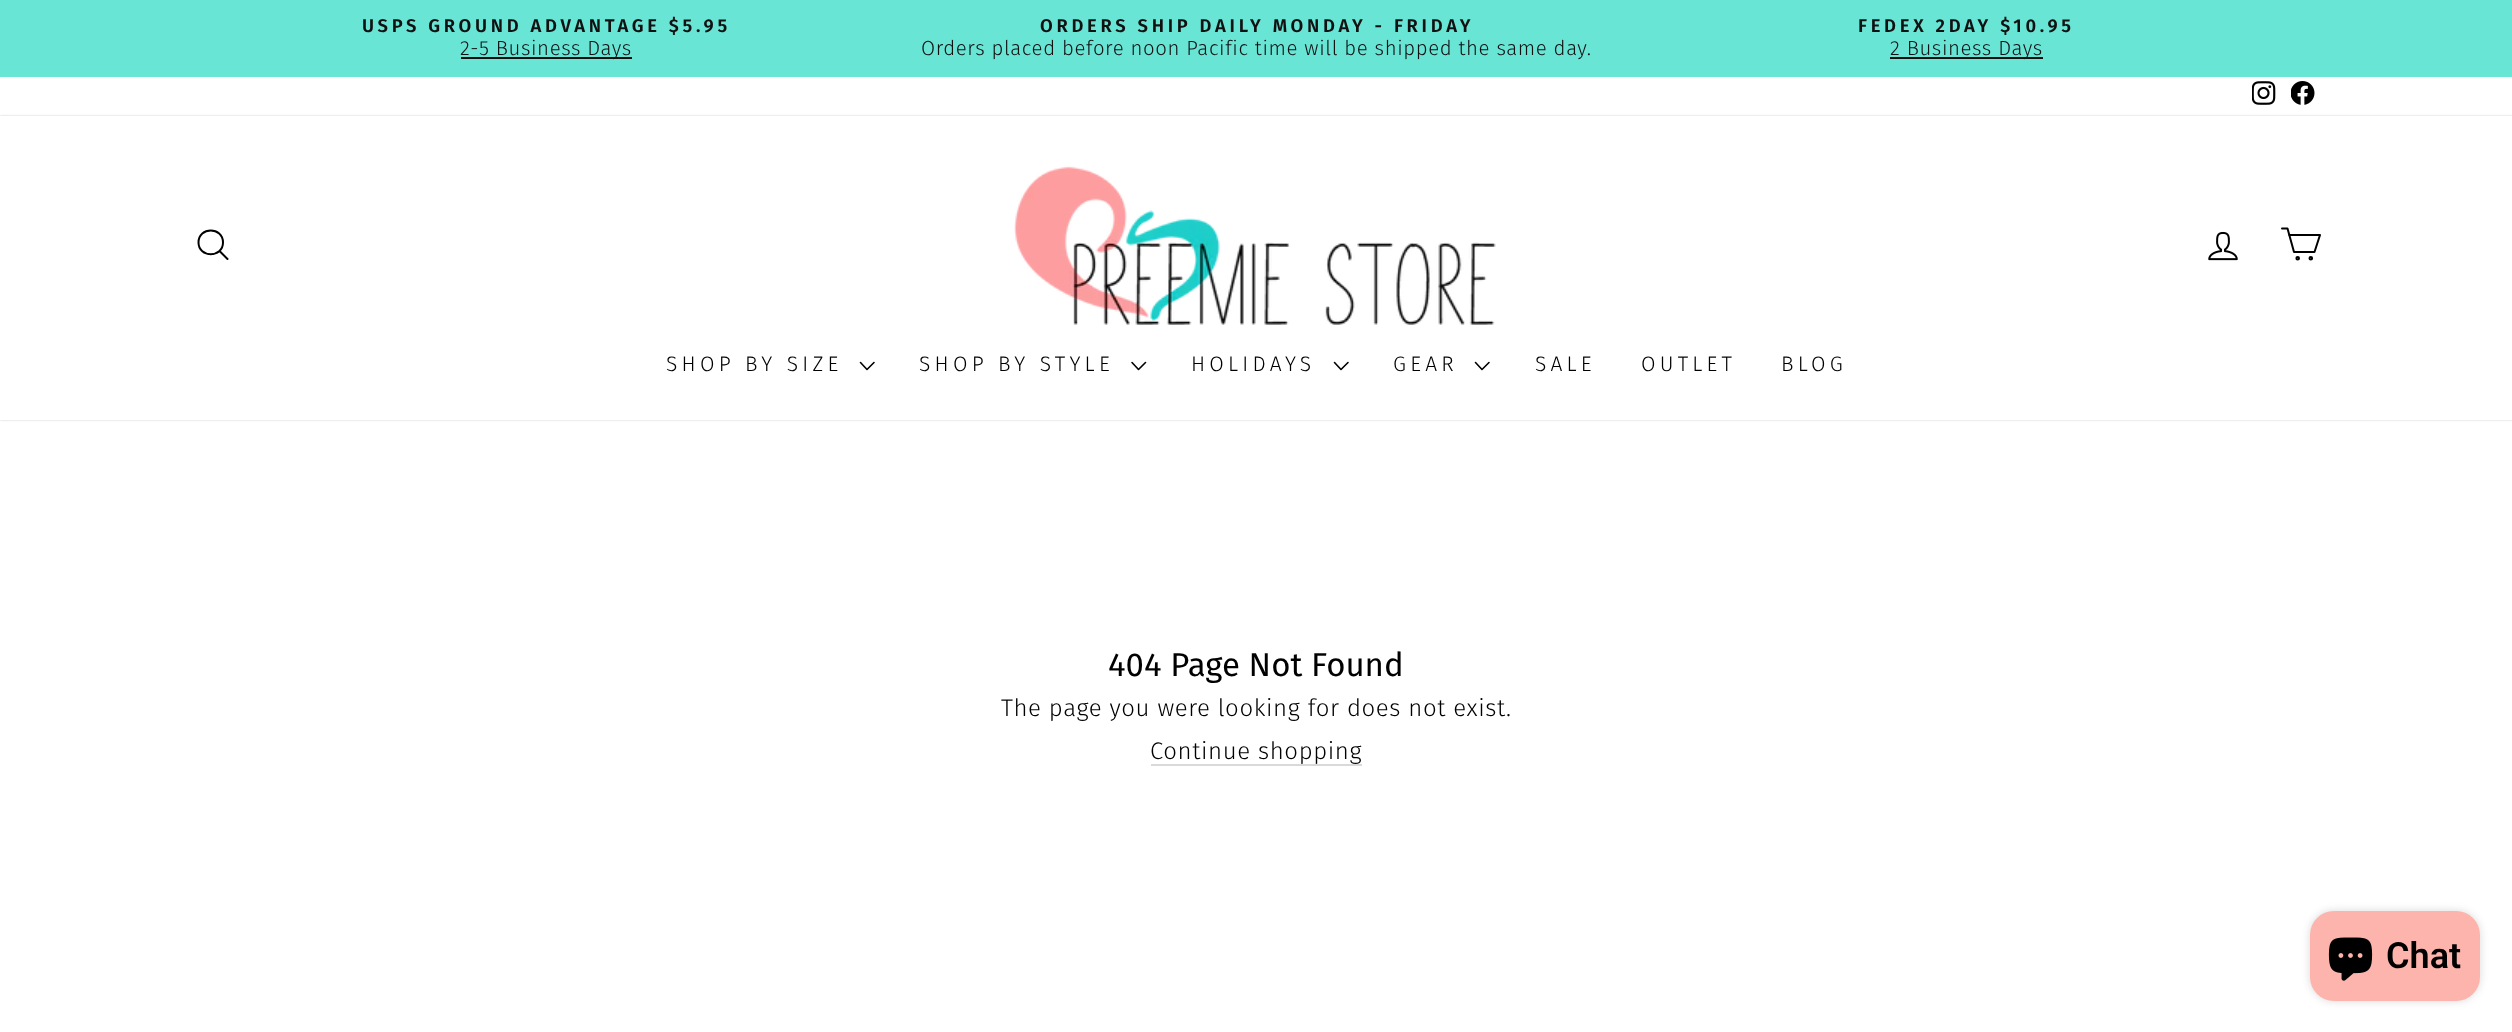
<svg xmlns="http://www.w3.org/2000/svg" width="2512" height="1032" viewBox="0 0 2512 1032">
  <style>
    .t1 { font: 600 18.4px Fira Sans; letter-spacing: 3.7px; fill: #111; }
    .t2 { font: 300 20.4px Fira Sans; letter-spacing: 0.6px; fill: #111; }
    .t3 { font: 300 21px Fira Sans; letter-spacing: 4.25px; fill: #000; }
    .t4 { font: 33px Fira Sans; fill: #000; }
    .t5 { font: 300 24px Fira Sans; letter-spacing: 0.6px; fill: #000; }
    .t6 { font: 600 36px Roboto; fill: #000; }
  </style>
  <defs>
    <clipPath id="clip1"><path d="M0 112H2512V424H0ZM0 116H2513V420H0Z" clip-rule="evenodd"/></clipPath>
  </defs>
  <rect width="100%" height="100%" fill="#fff"/>
  <rect x="0" y="0" width="2512" height="77" fill="#69e5d6"/>
  <text x="362" y="32" class="t1">USPS GROUND ADVANTAGE $5.95</text>
  <rect x="461" y="57" width="171" height="2" fill="#111"/>
  <text x="460" y="55" class="t2">2-5 Business Days</text>
  <text x="1040" y="32" class="t1">ORDERS SHIP DAILY MONDAY - FRIDAY</text>
  <text x="921" y="55" class="t2">Orders placed before noon Pacific time will be shipped the same day.</text>
  <text x="1858" y="32" class="t1">FEDEX 2DAY $10.95</text>
  <rect x="1890" y="57" width="153" height="2" fill="#111"/>
  <text x="1890" y="55" class="t2">2 Business Days</text>
  <image x="2252" y="81" width="24" height="24" href="images/1.png"/>
  <image x="2291" y="81" width="24" height="24" href="images/2.png"/>
  <g clip-path="url(#clip1)">
    <rect x="0" y="116" width="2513" height="304" fill="#00000033" filter="blur(1px)"/>
  </g>
  <path d="M223 242.5C223 258 198.5 258 198.5 242.5C198.5 226.5 223 226.5 223 242.5ZM227.5 259L219.5 251" fill="none" stroke="#000" stroke-width="2" stroke-linecap="round" stroke-linejoin="round"/>
  <image x="1014" y="166" width="482" height="159" href="images/3.png"/>
  <image x="2208" y="231" width="30" height="30" href="images/4.png"/>
  <path d="M2289 235H2320L2314.5 252H2294L2287.5 228.5H2282" fill="none" stroke="#000" stroke-width="2" stroke-linecap="round" stroke-linejoin="round"/>
  <circle cx="2297.7" cy="258.3" r="1.3" fill="none" stroke="#000" stroke-width="2"/>
  <circle cx="2310.8" cy="258.3" r="1.3" fill="none" stroke="#000" stroke-width="2"/>
  <text x="666" y="371" class="t3">SHOP BY SIZE</text>
  <path d="M860.5 362.5L867 369.5L874 362.5" fill="none" stroke="#000" stroke-width="1.6" stroke-linecap="round" stroke-linejoin="round"/>
  <text x="919" y="371" class="t3">SHOP BY STYLE</text>
  <path d="M1132 362.5L1138.5 369.5L1145.5 362.5" fill="none" stroke="#000" stroke-width="1.6" stroke-linecap="round" stroke-linejoin="round"/>
  <text x="1191" y="371" class="t3">HOLIDAYS</text>
  <path d="M1334.5 362.5L1341 369.5L1348 362.5" fill="none" stroke="#000" stroke-width="1.6" stroke-linecap="round" stroke-linejoin="round"/>
  <text x="1393" y="371" class="t3">GEAR</text>
  <path d="M1475.5 362.5L1482 369.5L1489 362.5" fill="none" stroke="#000" stroke-width="1.6" stroke-linecap="round" stroke-linejoin="round"/>
  <text x="1535" y="371" class="t3">SALE</text>
  <text x="1641" y="371" class="t3">OUTLET</text>
  <text x="1781" y="371" class="t3">BLOG</text>
  <text x="1108" y="676" class="t4">404 Page Not Found</text>
  <text x="1001" y="716" class="t5">The page you were looking for does not exist.</text>
  <text x="1150" y="759" class="t5">Continue shopping</text>
  <rect x="1151" y="764" width="211" height="2" fill="#d9d9d9"/>
  <rect x="2310" y="911" width="170" height="90" rx="24" fill="#00000026" filter="blur(4px)"/>
  <rect x="2310" y="911" width="170" height="90" rx="24" fill="#fdb4ad"/>
  <image x="2328" y="937" width="45" height="44" href="images/5.png"/>
  <text x="2386" y="968" class="t6">Chat</text>
</svg>
